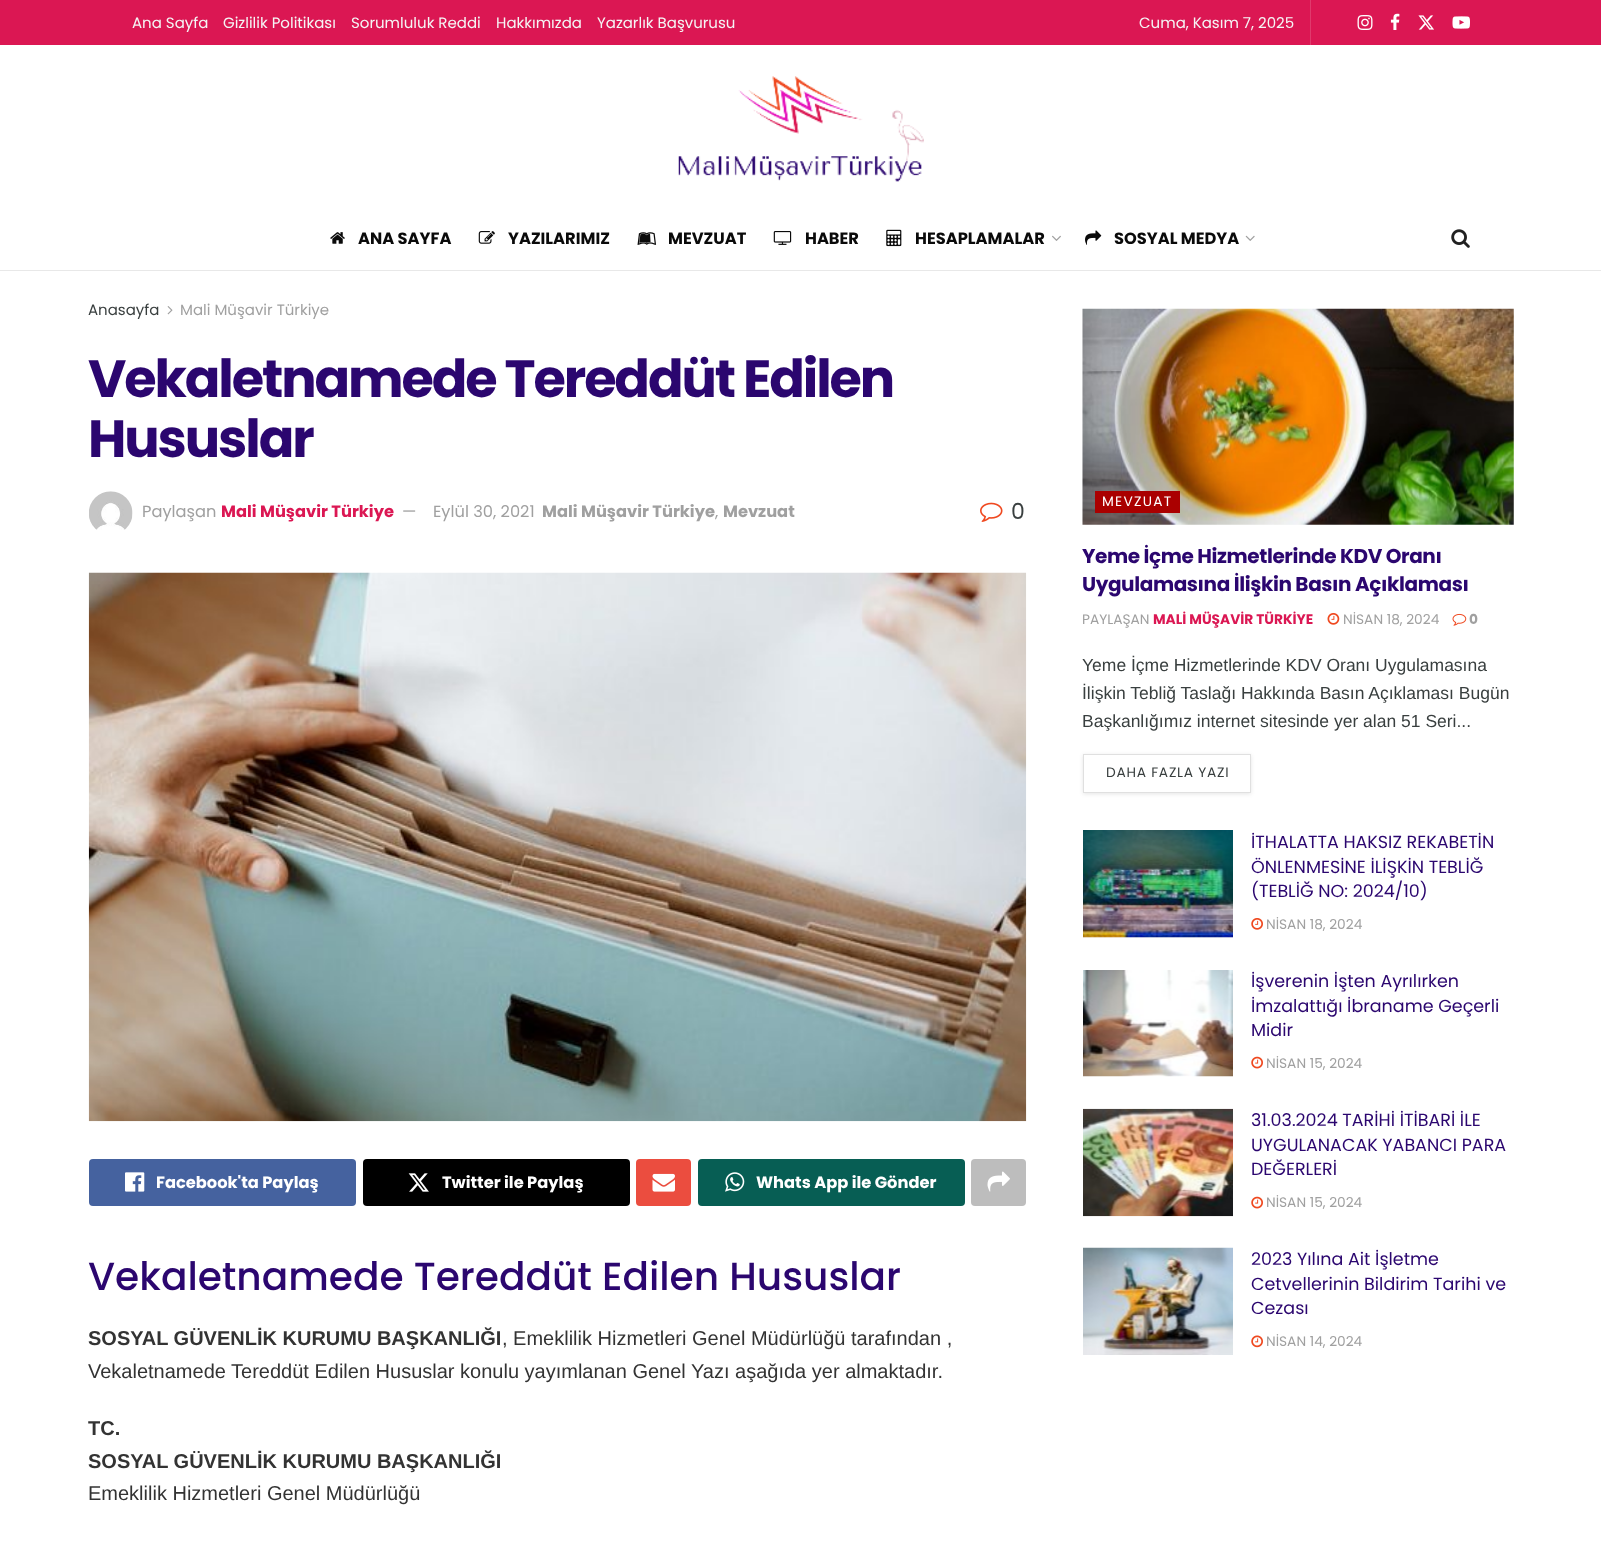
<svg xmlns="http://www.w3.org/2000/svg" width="1601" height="1541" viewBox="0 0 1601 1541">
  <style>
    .t1 { font: 15px Poppins; fill: #f5f5f5; }
    .t2 { font: bold 16.25px Poppins; fill: #0a0a0a; }
    .t3 { font: 15px Poppins; fill: #393f3f; }
    .t4 { font: 15px Poppins; fill: #a0a0a0; }
    .t5 { font: bold 52.5px Poppins; letter-spacing: -2.1px; fill: #2b066f; }
    .t6 { font: 16.25px Poppins; fill: #a0a0a0; }
    .t7 { font: bold 16.25px Poppins; fill: #db1753; }
    .t8 { font: bold 16.25px Poppins; fill: #a0a0a0; }
    .t9 { font: 22px Poppins; fill: #393f3f; }
    .t10 { font: bold 16.25px Poppins; fill: #fff; }
    .t11 { font: 500 39.1px Poppins; fill: #2b066f; }
    .t12 { font: bold 20px Liberation Sans; fill: #333; }
    .t13 { font: 20px Liberation Sans; fill: #333; }
    .t14 { font: 13.75px Poppins; letter-spacing: 1.25px; fill: #fff; }
    .t15 { font: bold 20px Poppins; letter-spacing: -0.4px; fill: #2b066f; }
    .t16 { font: 13.75px Poppins; fill: #a0a0a0; }
    .t17 { font: bold 13.75px Poppins; fill: #db1753; }
    .t18 { font: bold 13.75px Poppins; fill: #a0a0a0; }
    .t19 { font: 17.5px Liberation Sans; fill: #393f3f; }
    .t20 { font: 13.75px Poppins; letter-spacing: 0.75px; fill: #393f3f; }
    .t21 { font: 17.5px Poppins; fill: #2b066f; }
  </style>
  <defs>
    <clipPath id="clip1"><path d="M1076 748H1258V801H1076ZM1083 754H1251V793H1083Z" clip-rule="evenodd"/></clipPath>
  </defs>
  <rect width="100%" height="100%" fill="#fff"/>
  <rect x="0" y="0" width="1601" height="45" fill="#db1753"/>
  <text x="132" y="28" class="t1">Ana Sayfa</text>
  <text x="223" y="28" class="t1">Gizlilik Politikası</text>
  <text x="351" y="28" class="t1">Sorumluluk Reddi</text>
  <text x="496" y="28" class="t1">Hakkımızda</text>
  <text x="597" y="28" class="t1">Yazarlık Başvurusu</text>
  <rect x="1310" y="0" width="1" height="45" fill="#e03a6d"/>
  <text x="1139" y="28" class="t1">Cuma, Kasım 7, 2025</text>
  <image x="1357" y="15" width="16" height="15" href="images/1.png"/>
  <image x="1390" y="13" width="10" height="17" href="images/2.png"/>
  <image x="1418" y="15" width="16" height="15" href="images/3.png"/>
  <image x="1452" y="16" width="18" height="13" href="images/4.png"/>
  <image x="678" y="76" width="246" height="106" href="images/5.png"/>
  <rect x="0" y="270" width="1601" height="1" fill="#e8e8e8"/>
  <image x="330" y="232" width="15" height="12" href="images/6.png"/>
  <text x="358" y="244" class="t2">ANA SAYFA</text>
  <image x="478" y="231" width="17" height="13" href="images/7.png"/>
  <text x="508" y="244" class="t2">YAZILARIMIZ</text>
  <image x="637" y="232" width="20" height="13" href="images/8.png"/>
  <text x="668" y="244" class="t2">MEVZUAT</text>
  <image x="773" y="231" width="19" height="14" href="images/9.png"/>
  <text x="805" y="244" class="t2">HABER</text>
  <image x="886" y="229" width="16" height="18" href="images/10.png"/>
  <text x="915" y="244" class="t2">HESAPLAMALAR</text>
  <image x="1052" y="235" width="9" height="6" href="images/11.png"/>
  <image x="1085" y="230" width="17" height="15" href="images/12.png"/>
  <text x="1114" y="244" class="t2">SOSYAL MEDYA</text>
  <image x="1245" y="235" width="10" height="6" href="images/13.png"/>
  <image x="1451" y="229" width="19" height="19" href="images/14.png"/>
  <text x="88" y="315" class="t3">Anasayfa</text>
  <image x="167" y="306" width="6" height="9" href="images/15.png"/>
  <text x="180" y="315" class="t4">Mali Müşavir Türkiye</text>
  <text x="88" y="397" class="t5">Vekaletnamede Tereddüt Edilen</text>
  <text x="88" y="457" class="t5">Hususlar</text>
  <image x="89" y="491" width="44" height="39" href="images/16.png"/>
  <text x="142" y="517" class="t6">Paylaşan</text>
  <text x="221" y="517" class="t7">Mali Müşavir Türkiye</text>
  <text x="402" y="517" class="t6">—</text>
  <text x="433" y="517" class="t6">Eylül 30, 2021</text>
  <text x="542" y="517" class="t8">Mali Müşavir Türkiye</text>
  <text x="715" y="517" class="t6">,</text>
  <text x="723" y="517" class="t8">Mevzuat</text>
  <image x="980" y="502" width="23" height="20" href="images/17.png"/>
  <text x="1011" y="519" class="t9">0</text>
  <image x="88" y="572" width="939" height="550" href="images/18.png"/>
  <rect x="89" y="1159" width="267" height="47" rx="4" fill="#45629f"/>
  <image x="125" y="1172" width="20" height="20" href="images/19.png"/>
  <text x="156" y="1188" class="t10">Facebook'ta Paylaş</text>
  <rect x="363" y="1159" width="267" height="47" rx="4" fill="#000"/>
  <image x="408" y="1173" width="21" height="19" href="images/20.png"/>
  <text x="442" y="1188" class="t10">Twitter ile Paylaş</text>
  <rect x="636" y="1159" width="55" height="47" rx="4" fill="#eb4d3f"/>
  <image x="652" y="1173" width="23" height="19" href="images/21.png"/>
  <rect x="698" y="1159" width="267" height="47" rx="4" fill="#075e54"/>
  <image x="725" y="1172" width="20" height="20" href="images/22.png"/>
  <text x="756" y="1188" class="t10">Whats App ile Gönder</text>
  <rect x="971" y="1159" width="55" height="47" rx="4" fill="#bdbdbd"/>
  <image x="987" y="1171" width="23" height="21" href="images/23.png"/>
  <text x="88" y="1290" class="t11">Vekaletnamede Tereddüt Edilen Hususlar</text>
  <text x="88" y="1345" class="t12">SOSYAL GÜVENLİK KURUMU BAŞKANLIĞI</text>
  <text x="502" y="1345" class="t13">, Emeklilik Hizmetleri Genel Müdürlüğü tarafından ,</text>
  <text x="88" y="1378" class="t13">Vekaletnamede Tereddüt Edilen Hususlar konulu yayımlanan Genel Yazı aşağıda yer almaktadır.</text>
  <text x="88" y="1435" class="t12">TC.</text>
  <text x="88" y="1468" class="t12">SOSYAL GÜVENLİK KURUMU BAŞKANLIĞI</text>
  <text x="88" y="1500" class="t13">Emeklilik Hizmetleri Genel Müdürlüğü</text>
  <rect x="1083" y="309" width="431" height="216" fill="#f7f7f7"/>
  <image x="1082" y="309" width="1" height="216" href="images/25.png"/>
  <image x="1082" y="308" width="432" height="217" href="images/24.png"/>
  <rect x="1095" y="491" width="85" height="22" fill="#a00"/>
  <text x="1102" y="506" class="t14">MEVZUAT</text>
  <text x="1082" y="563" class="t15">Yeme İçme Hizmetlerinde KDV Oranı</text>
  <text x="1082" y="591" class="t15">Uygulamasına İlişkin Basın Açıklaması</text>
  <text x="1082" y="624" class="t16">PAYLAŞAN</text>
  <text x="1153" y="624" class="t17">MALİ MÜŞAVİR TÜRKİYE</text>
  <image x="1327" y="612" width="13" height="13" href="images/26.png"/>
  <text x="1343" y="624" class="t16">NİSAN 18, 2024</text>
  <image x="1452" y="613" width="15" height="13" href="images/27.png"/>
  <text x="1469" y="624" class="t18">0</text>
  <text x="1082" y="671" class="t19">Yeme İçme Hizmetlerinde KDV Oranı Uygulamasına</text>
  <text x="1082" y="699" class="t19">İlişkin Tebliğ Taslağı Hakkında Basın Açıklaması Bugün</text>
  <text x="1082" y="727" class="t19">Başkanlığımız internet sitesinde yer alan 51 Seri...</text>
  <g clip-path="url(#clip1)">
    <rect x="1083" y="755" width="168" height="39" fill="#0000001a" filter="blur(2px)"/>
  </g>
  <rect x="1083.5" y="754.5" width="167" height="38" fill="none" stroke="#e0e0e0"/>
  <text x="1106" y="777" class="t20">DAHA FAZLA YAZI</text>
  <rect x="1083" y="937" width="150" height="1" fill="#f7f7f7"/>
  <image x="1083" y="830" width="150" height="108" href="images/28.png"/>
  <text x="1251" y="848" class="t21">İTHALATTA HAKSIZ REKABETİN</text>
  <text x="1251" y="873" class="t21">ÖNLENMESİNE İLİŞKİN TEBLİĞ</text>
  <text x="1251" y="897" class="t21">(TEBLİĞ NO: 2024/10)</text>
  <image x="1251" y="918" width="12" height="12" href="images/29.png"/>
  <text x="1266" y="929" class="t16">NİSAN 18, 2024</text>
  <image x="1083" y="970" width="150" height="107" href="images/30.png"/>
  <text x="1251" y="987" class="t21">İşverenin İşten Ayrılırken</text>
  <text x="1251" y="1012" class="t21">İmzalattığı İbraname Geçerli</text>
  <text x="1251" y="1036" class="t21">Midir</text>
  <image x="1251" y="1056" width="12" height="13" href="images/31.png"/>
  <text x="1266" y="1068" class="t16">NİSAN 15, 2024</text>
  <image x="1083" y="1108" width="150" height="109" href="images/32.png"/>
  <text x="1251" y="1126" class="t21">31.03.2024 TARİHİ İTİBARİ İLE</text>
  <text x="1251" y="1151" class="t21">UYGULANACAK YABANCI PARA</text>
  <text x="1251" y="1175" class="t21">DEĞERLERİ</text>
  <image x="1251" y="1196" width="12" height="13" href="images/31.png"/>
  <text x="1266" y="1207" class="t16">NİSAN 15, 2024</text>
  <image x="1083" y="1247" width="150" height="108" href="images/33.png"/>
  <text x="1251" y="1265" class="t21">2023 Yılına Ait İşletme</text>
  <text x="1251" y="1290" class="t21">Cetvellerinin Bildirim Tarihi ve</text>
  <text x="1251" y="1314" class="t21">Cezası</text>
  <image x="1251" y="1335" width="12" height="13" href="images/34.png"/>
  <text x="1266" y="1346" class="t16">NİSAN 14, 2024</text>
</svg>
